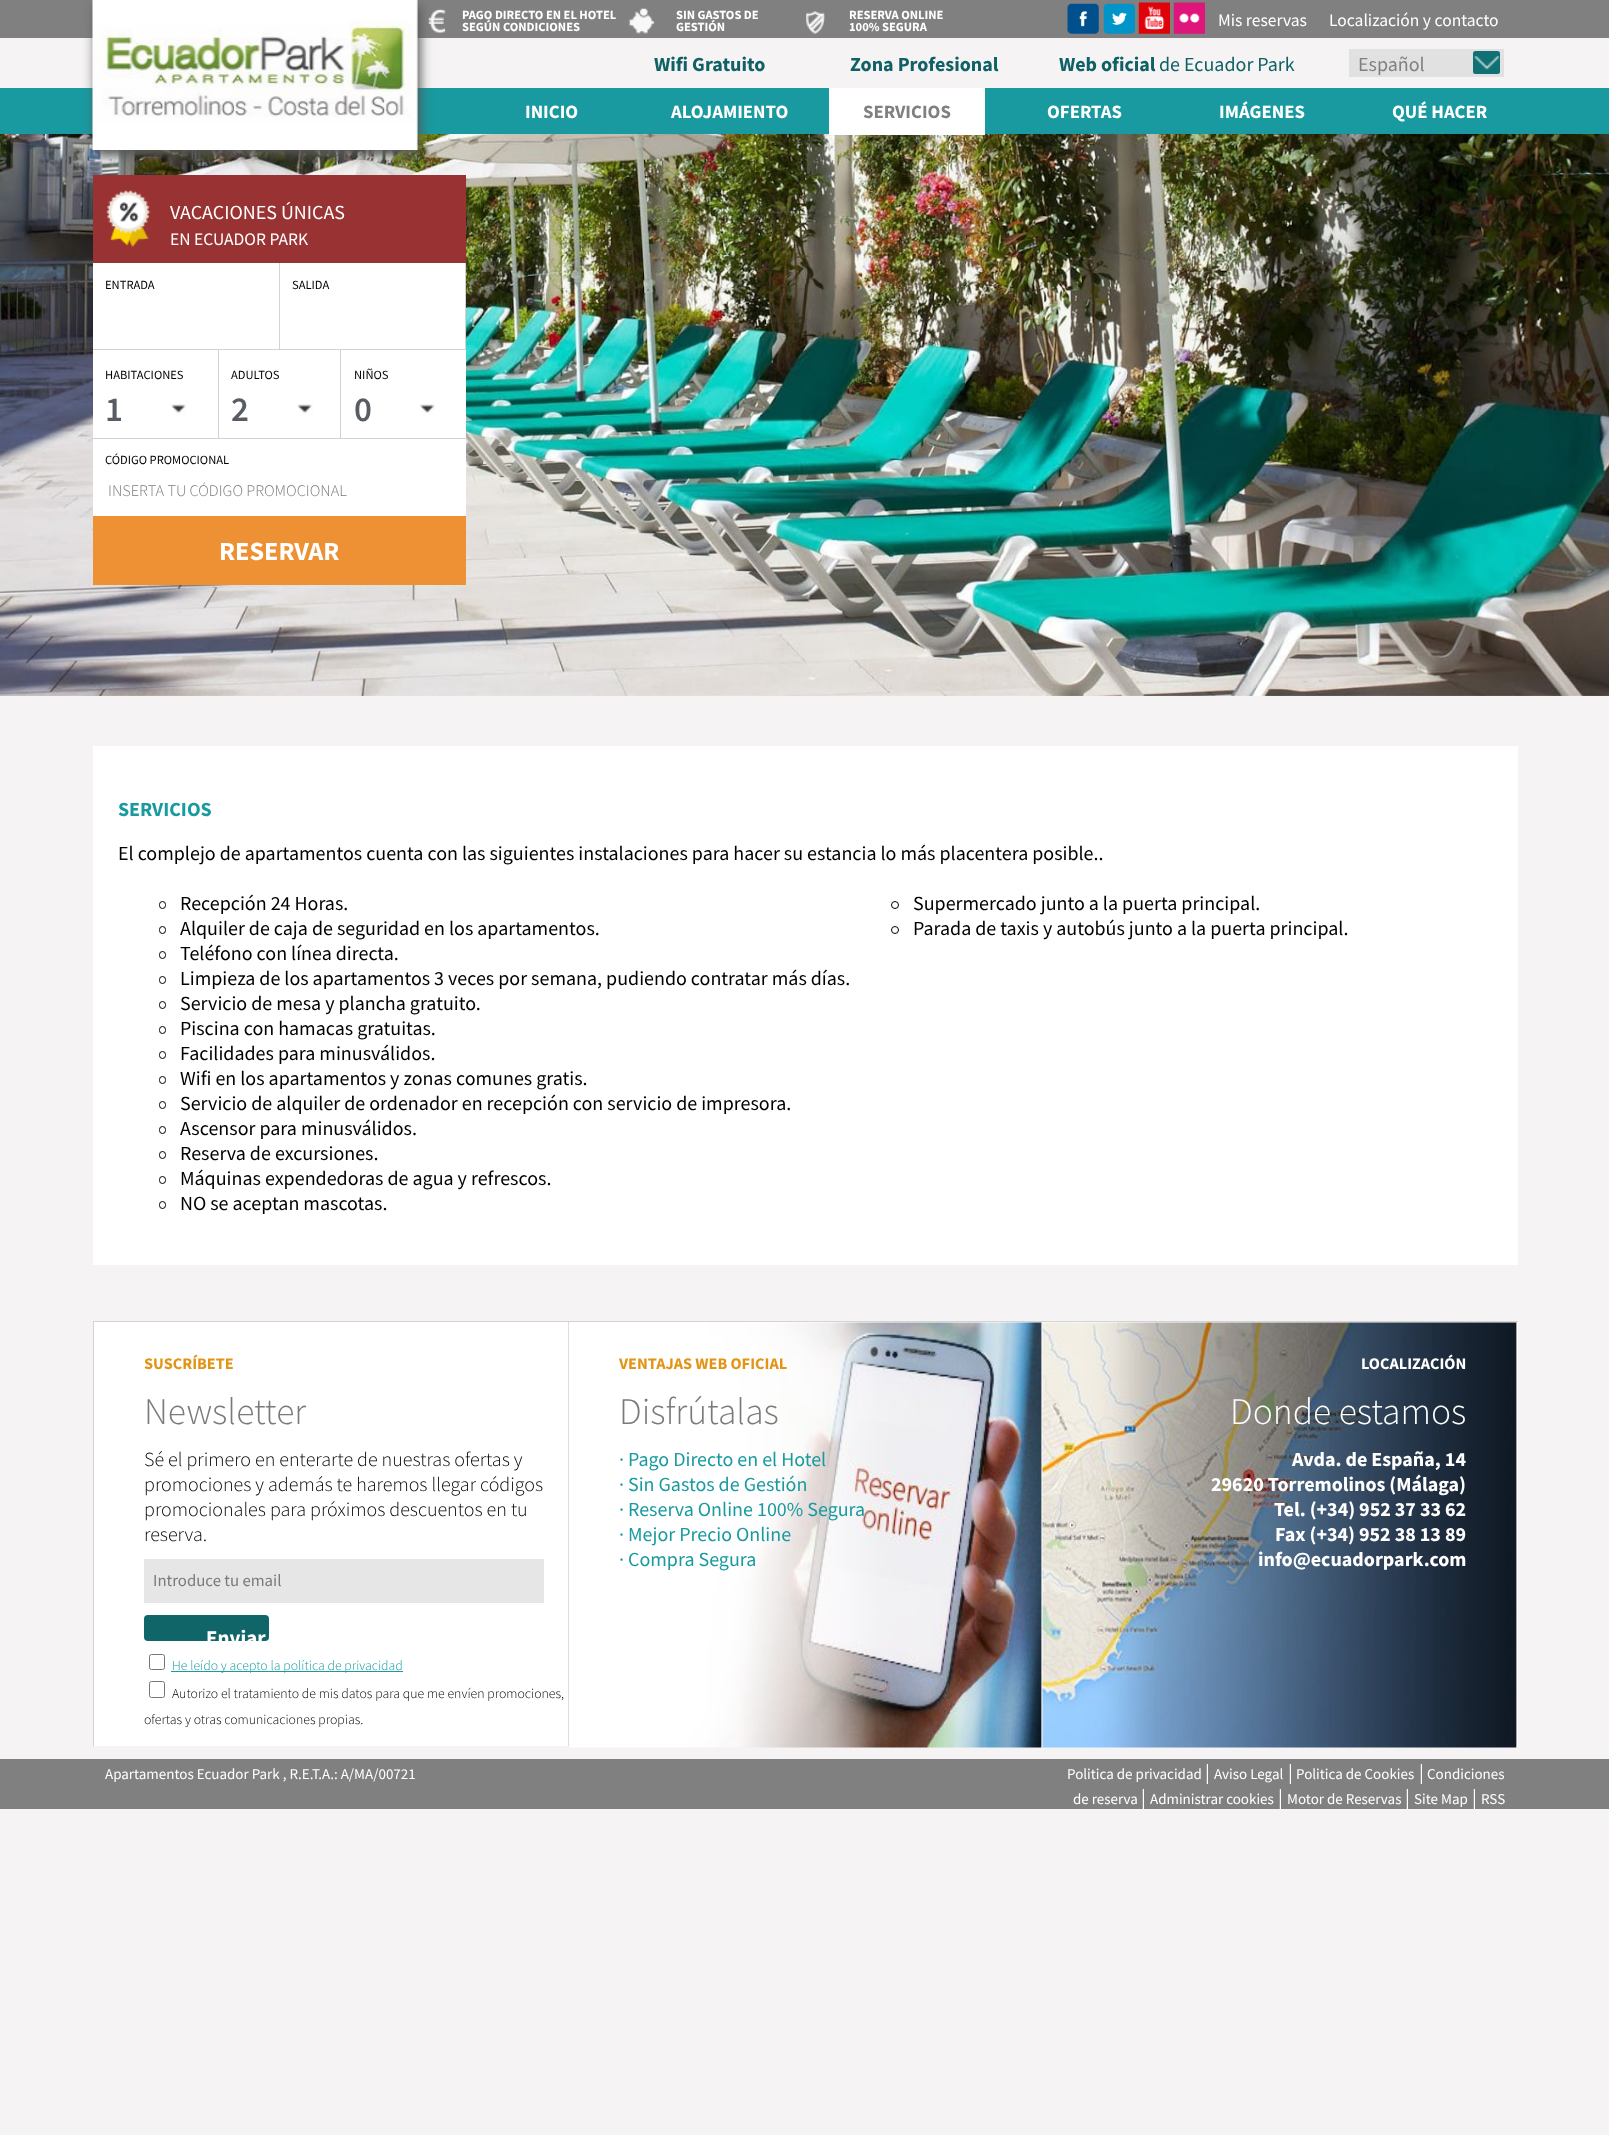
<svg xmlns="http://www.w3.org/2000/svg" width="1609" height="2135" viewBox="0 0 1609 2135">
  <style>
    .t1 { font: bold 12.5px Source Sans Pro; fill: #fff; }
    .t2 { font: 17.5px Source Sans Pro; fill: #fff; }
    .t3 { font: bold 20px Source Sans Pro; fill: #106165; }
    .t4 { font: 20px Source Sans Pro; fill: #106165; }
    .t5 { font: 20px Source Sans Pro; fill: #808080; }
    .t6 { font: bold 18.75px Source Sans Pro; fill: #fff; }
    .t7 { font: bold 18.75px Source Sans Pro; fill: #808080; }
    .t8 { font: 20px Source Sans Pro; fill: #fff; }
    .t9 { font: 12.5px Source Sans Pro; fill: #000; }
    .t10 { font: 600 35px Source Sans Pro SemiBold; fill: #585d63; }
    .t11 { font: 300 16.25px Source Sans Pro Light; fill: #7a7a7a; }
    .t12 { font: bold 26.25px Source Sans Pro; fill: #fff; }
    .t13 { font: bold 20px Source Sans Pro; fill: #199aa0; }
    .t14 { font: 20px Source Sans Pro; fill: #000; }
    .t15 { font: bold 16.25px Source Sans Pro; fill: #e29515; }
    .t16 { font: 300 37.5px Source Sans Pro Light; fill: #7a7a7a; }
    .t17 { font: 300 20px Source Sans Pro Light; fill: #000; }
    .t18 { font: 16.75px Source Sans Pro; fill: #7a7a7a; }
    .t19 { font: bold 21px Source Sans Pro; fill: #fff; }
    .t20 { font: 300 13.75px Source Sans Pro Light; fill: #199aa0; }
    .t21 { font: 300 13.75px Source Sans Pro Light; fill: #000; }
    .t22 { font: 20px Source Sans Pro; fill: #199aa0; }
    .t23 { font: bold 16.25px Source Sans Pro; fill: #fff; }
    .t24 { font: 300 37.5px Source Sans Pro Light; fill: #fff; }
    .t25 { font: bold 20px Source Sans Pro; fill: #fff; }
    .t26 { font: 15px Source Sans Pro; fill: #fff; }
  </style>
  <rect width="100%" height="100%" fill="#f5f3f4"/>
  <rect x="0" y="0" width="1609" height="38" fill="#808080"/>
  <image x="428" y="8" width="18" height="25" href="images/2.png"/>
  <rect x="0" y="88" width="1609" height="46" fill="#199aa0"/>
  <image x="0" y="134" width="1609" height="562" href="images/10.png"/>
  <rect x="95" y="6" width="325" height="150" fill="#555" filter="blur(6px)"/>
  <image x="92" y="0" width="326" height="150" href="images/1.png"/>
  <text x="462" y="19" class="t1">PAGO DIRECTO EN EL HOTEL</text>
  <text x="462" y="31" class="t1">SEGÚN CONDICIONES</text>
  <image x="628" y="8" width="27" height="26" href="images/3.png"/>
  <text x="676" y="19" class="t1">SIN GASTOS DE</text>
  <text x="676" y="31" class="t1">GESTIÓN</text>
  <image x="806" y="11" width="19" height="23" href="images/4.png"/>
  <text x="849" y="19" class="t1">RESERVA ONLINE</text>
  <text x="849" y="31" class="t1">100% SEGURA</text>
  <image x="1067" y="3" width="32" height="31" href="images/5.png"/>
  <image x="1103" y="3" width="32" height="31" href="images/6.png"/>
  <image x="1138" y="2" width="32" height="32" href="images/7.png"/>
  <image x="1173" y="2" width="32" height="32" href="images/8.png"/>
  <text x="1218" y="26" class="t2">Mis reservas</text>
  <text x="1329" y="26" class="t2">Localización y contacto</text>
  <text x="654" y="71" class="t3">Wifi Gratuito</text>
  <text x="850" y="71" class="t3">Zona Profesional</text>
  <text x="1059" y="71" class="t3">Web oficial</text>
  <text x="1159" y="71" class="t4">de Ecuador Park</text>
  <rect x="1349" y="49" width="155" height="28" fill="#e1e1e1"/>
  <text x="1358" y="71" class="t5">Español</text>
  <rect x="1473" y="51" width="27" height="23" rx="2.5" fill="#117074"/>
  <image x="1474" y="56" width="26" height="14" href="images/9.png"/>
  <text x="525" y="118" class="t6">INICIO</text>
  <text x="671" y="118" class="t6">ALOJAMIENTO</text>
  <rect x="829" y="88" width="156" height="47" fill="#fff"/>
  <text x="863" y="118" class="t7">SERVICIOS</text>
  <text x="1047" y="118" class="t6">OFERTAS</text>
  <text x="1219" y="118" class="t6">IMÁGENES</text>
  <text x="1392" y="118" class="t6">QUÉ HACER</text>
  <rect x="93" y="175" width="373" height="88" fill="#933"/>
  <image x="106" y="190" width="45" height="58" href="images/11.png"/>
  <text x="170" y="219" class="t8">VACACIONES ÚNICAS</text>
  <text x="170" y="245" class="t2">EN ECUADOR PARK</text>
  <rect x="93" y="263" width="373" height="253" fill="#fff"/>
  <rect x="279" y="263" width="1" height="87" fill="#d3d3d3"/>
  <rect x="93" y="349" width="187" height="1" fill="#d3d3d3"/>
  <text x="105" y="289" class="t9">ENTRADA</text>
  <rect x="465" y="263" width="1" height="87" fill="#d3d3d3"/>
  <rect x="280" y="349" width="186" height="1" fill="#d3d3d3"/>
  <text x="292" y="289" class="t9">SALIDA</text>
  <text x="105" y="379" class="t9">HABITACIONES</text>
  <text x="105" y="421" class="t10">1</text>
  <image x="170" y="404" width="16" height="12" href="images/12.png"/>
  <rect x="340" y="350" width="1" height="88" fill="#d3d3d3"/>
  <rect x="218" y="350" width="1" height="88" fill="#d3d3d3"/>
  <text x="231" y="379" class="t9">ADULTOS</text>
  <text x="231" y="421" class="t10">2</text>
  <image x="297" y="404" width="16" height="12" href="images/13.png"/>
  <text x="354" y="379" class="t9">NIÑOS</text>
  <text x="354" y="421" class="t10">0</text>
  <image x="419" y="404" width="16" height="12" href="images/14.png"/>
  <rect x="93" y="438" width="373" height="1" fill="#d3d3d3"/>
  <text x="105" y="464" class="t9">CÓDIGO PROMOCIONAL</text>
  <text x="108" y="496" class="t11">INSERTA TU CÓDIGO PROMOCIONAL</text>
  <rect x="93" y="516" width="373" height="69" fill="#ee9034"/>
  <text x="219" y="560" class="t12">RESERVAR</text>
  <rect x="93" y="746" width="1425" height="519" fill="#fff"/>
  <text x="118" y="816" class="t13">SERVICIOS</text>
  <text x="118" y="860" class="t14">El complejo de apartamentos cuenta con las siguientes instalaciones para hacer su estancia lo más placentera posible..</text>
  <rect x="159.5" y="901.5" width="6" height="7" rx="3" fill="none" stroke="#000"/>
  <text x="180" y="910" class="t14">Recepción 24 Horas.</text>
  <rect x="159.5" y="926.5" width="6" height="7" rx="3" fill="none" stroke="#000"/>
  <text x="180" y="935" class="t14">Alquiler de caja de seguridad en los apartamentos.</text>
  <rect x="159.5" y="951.5" width="6" height="7" rx="3" fill="none" stroke="#000"/>
  <text x="180" y="960" class="t14">Teléfono con línea directa.</text>
  <rect x="159.5" y="976.5" width="6" height="7" rx="3" fill="none" stroke="#000"/>
  <text x="180" y="985" class="t14">Limpieza de los apartamentos 3 veces por semana, pudiendo contratar más días.</text>
  <rect x="159.5" y="1001.5" width="6" height="7" rx="3" fill="none" stroke="#000"/>
  <text x="180" y="1010" class="t14">Servicio de mesa y plancha gratuito.</text>
  <rect x="159.5" y="1026.5" width="6" height="7" rx="3" fill="none" stroke="#000"/>
  <text x="180" y="1035" class="t14">Piscina con hamacas gratuitas.</text>
  <rect x="159.5" y="1051.5" width="6" height="7" rx="3" fill="none" stroke="#000"/>
  <text x="180" y="1060" class="t14">Facilidades para minusválidos.</text>
  <rect x="159.5" y="1076.5" width="6" height="7" rx="3" fill="none" stroke="#000"/>
  <text x="180" y="1085" class="t14">Wifi en los apartamentos y zonas comunes gratis.</text>
  <rect x="159.5" y="1101.5" width="6" height="7" rx="3" fill="none" stroke="#000"/>
  <text x="180" y="1110" class="t14">Servicio de alquiler de ordenador en recepción con servicio de impresora.</text>
  <rect x="159.5" y="1126.5" width="6" height="7" rx="3" fill="none" stroke="#000"/>
  <text x="180" y="1135" class="t14">Ascensor para minusválidos.</text>
  <rect x="159.5" y="1151.5" width="6" height="7" rx="3" fill="none" stroke="#000"/>
  <text x="180" y="1160" class="t14">Reserva de excursiones.</text>
  <rect x="159.5" y="1176.5" width="6" height="7" rx="3" fill="none" stroke="#000"/>
  <text x="180" y="1185" class="t14">Máquinas expendedoras de agua y refrescos.</text>
  <rect x="159.5" y="1201.5" width="6" height="7" rx="3" fill="none" stroke="#000"/>
  <text x="180" y="1210" class="t14">NO se aceptan mascotas.</text>
  <circle cx="895" cy="905" r="3.5" fill="none" stroke="#000"/>
  <text x="913" y="910" class="t14">Supermercado junto a la puerta principal.</text>
  <circle cx="895" cy="930" r="3.5" fill="none" stroke="#000"/>
  <text x="913" y="935" class="t14">Parada de taxis y autobús junto a la puerta principal.</text>
  <rect x="94" y="1322" width="474" height="424" fill="#fff"/>
  <rect x="93" y="1321" width="1425" height="1" fill="#d3d3d3"/>
  <rect x="93" y="1321" width="1" height="425" fill="#d3d3d3"/>
  <text x="144" y="1369" class="t15">SUSCRÍBETE</text>
  <text x="144" y="1424" class="t16">Newsletter</text>
  <text x="144" y="1466" class="t17">Sé el primero en enterarte de nuestras ofertas y</text>
  <text x="144" y="1491" class="t17">promociones y además te haremos llegar códigos</text>
  <text x="144" y="1516" class="t17">promocionales para próximos descuentos en tu</text>
  <text x="144" y="1541" class="t17">reserva.</text>
  <rect x="144" y="1559" width="400" height="44" fill="#e6e6e6"/>
  <text x="153" y="1586" class="t18">Introduce tu email</text>
  <rect x="144" y="1615" width="125" height="26" rx="4" fill="#106569"/>
  <text x="206" y="1645" class="t19">Enviar</text>
  <rect x="149.5" y="1654.5" width="15" height="15" rx="2" fill="none" stroke="#767676"/>
  <rect x="171" y="1671" width="232" height="1" fill="#199aa0"/>
  <text x="172" y="1670" class="t20">He leído y acepto la política de privacidad</text>
  <rect x="149.5" y="1681.5" width="15" height="16" rx="2" fill="none" stroke="#767676"/>
  <text x="172" y="1698" class="t21">Autorizo el tratamiento de mis datos para que me envíen promociones,</text>
  <text x="144" y="1724" class="t21">ofertas y otras comunicaciones propias.</text>
  <rect x="569" y="1322" width="949" height="424" fill="#fff"/>
  <rect x="1041" y="1321" width="1" height="425" fill="#d3d3d3"/>
  <rect x="568" y="1321" width="1" height="425" fill="#d3d3d3"/>
  <image x="568" y="1322" width="474" height="426" href="images/15.png"/>
  <text x="619" y="1369" class="t15">VENTAJAS WEB OFICIAL</text>
  <text x="619" y="1424" class="t16">Disfrútalas</text>
  <text x="619" y="1466" class="t22">· Pago Directo en el Hotel</text>
  <text x="619" y="1491" class="t22">· Sin Gastos de Gestión</text>
  <text x="619" y="1516" class="t22">· Reserva Online 100% Segura</text>
  <text x="619" y="1541" class="t22">· Mejor Precio Online</text>
  <text x="619" y="1566" class="t22">· Compra Segura</text>
  <rect x="1516" y="1321" width="1" height="425" fill="#d3d3d3"/>
  <image x="1042" y="1322" width="475" height="426" href="images/16.png"/>
  <text x="1361" y="1369" class="t23">LOCALIZACIÓN</text>
  <text x="1230" y="1424" class="t24">Donde estamos</text>
  <text x="1292" y="1466" class="t25">Avda. de España, 14</text>
  <text x="1211" y="1491" class="t25">29620 Torremolinos (Málaga)</text>
  <text x="1274" y="1516" class="t25">Tel. (+34) 952 37 33 62</text>
  <text x="1275" y="1541" class="t25">Fax (+34) 952 38 13 89</text>
  <text x="1258" y="1566" class="t25">info@ecuadorpark.com</text>
  <rect x="0" y="1759" width="1609" height="50" fill="#808080"/>
  <text x="105" y="1779" class="t26">Apartamentos Ecuador Park , R.E.T.A.: A/MA/00721</text>
  <text x="1067" y="1779" class="t26">Politica de privacidad</text>
  <text x="1205" y="1779" class="t8">|</text>
  <text x="1214" y="1779" class="t26">Aviso Legal</text>
  <text x="1288" y="1779" class="t8">|</text>
  <text x="1296" y="1779" class="t26">Politica de Cookies</text>
  <text x="1419" y="1779" class="t8">|</text>
  <text x="1427" y="1779" class="t26">Condiciones</text>
  <text x="1073" y="1804" class="t26">de reserva</text>
  <text x="1141" y="1804" class="t8">|</text>
  <text x="1150" y="1804" class="t26">Administrar cookies</text>
  <text x="1278" y="1804" class="t8">|</text>
  <text x="1287" y="1804" class="t26">Motor de Reservas</text>
  <text x="1405" y="1804" class="t8">|</text>
  <text x="1414" y="1804" class="t26">Site Map</text>
  <text x="1472" y="1804" class="t8">|</text>
  <text x="1481" y="1804" class="t26">RSS</text>
</svg>
